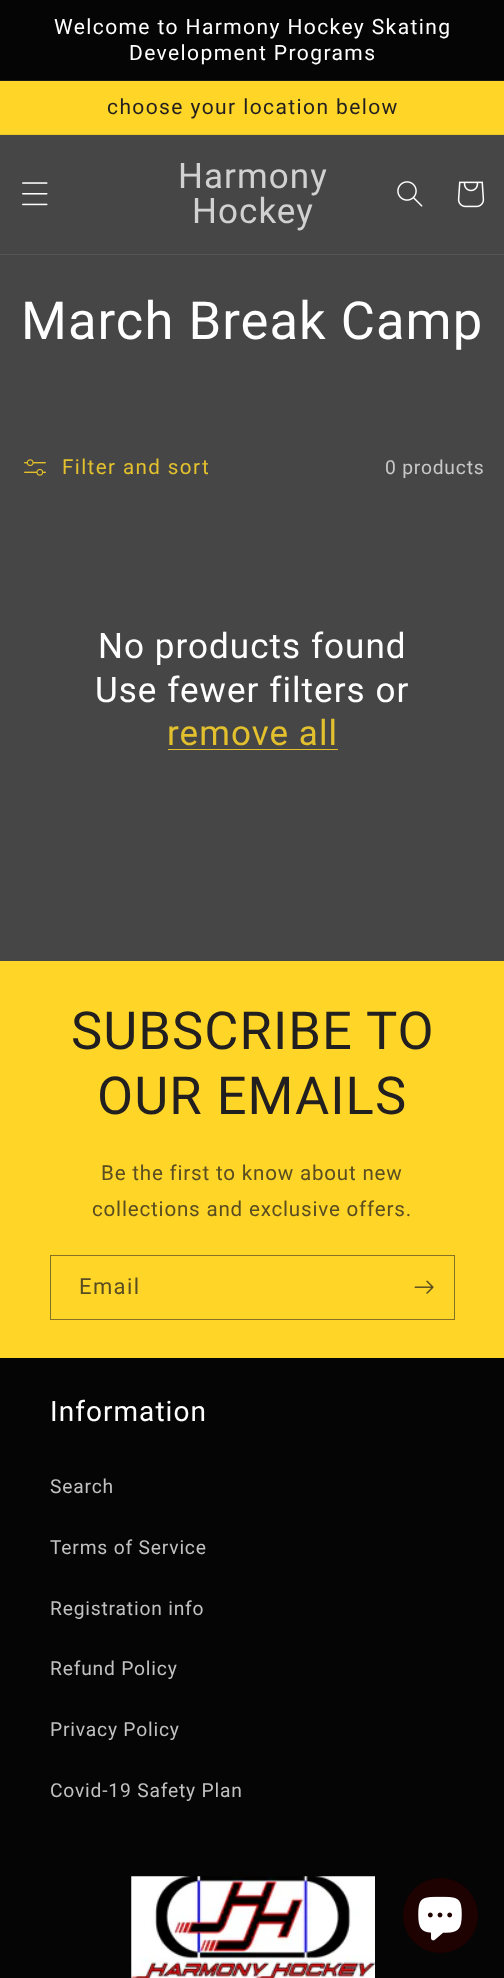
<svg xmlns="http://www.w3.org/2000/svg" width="504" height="1978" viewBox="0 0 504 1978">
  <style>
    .t1 { font: 21px Roboto; letter-spacing: 1.4px; fill: #fff; }
    .t2 { font: 21px Roboto; letter-spacing: 1.4px; fill: #211f1f; }
    .t3 { font: 35px Roboto; letter-spacing: 1.05px; fill: #d1d1d1; }
    .t4 { font: 52.5px Roboto; letter-spacing: 1.05px; fill: #fff; }
    .t5 { font: 20.6px Roboto; letter-spacing: 1.4px; fill: #e3c02d; }
    .t6 { font: 19.25px Roboto; letter-spacing: 0.8px; fill: #c8c8c8; }
    .t7 { font: 35px Roboto; letter-spacing: 1.05px; fill: #fff; }
    .t8 { font: 35px Roboto; letter-spacing: 1.05px; fill: #e3c02d; }
    .t9 { font: 52.5px Roboto; letter-spacing: 1.05px; fill: #211f1f; }
    .t10 { font: 20.6px Roboto; letter-spacing: 0.8px; fill: #594d21; }
    .t11 { font: 22px Roboto; letter-spacing: 1.4px; fill: #594d21; }
    .t12 { font: 28px Roboto; letter-spacing: 1.05px; fill: #fff; }
    .t13 { font: 19.25px Roboto; letter-spacing: 0.8px; fill: #c1c1c1; }
  </style>
  <rect width="100%" height="100%" fill="#464646"/>
  <rect x="0" y="0" width="504" height="80" fill="#050505"/>
  <rect x="0" y="80" width="504" height="1" fill="#191919"/>
  <text x="54" y="34" class="t1">Welcome to Harmony Hockey Skating</text>
  <text x="129" y="60" class="t1">Development Programs</text>
  <rect x="0" y="81" width="504" height="53" fill="#ffd528"/>
  <rect x="0" y="134" width="504" height="1" fill="#edc627"/>
  <text x="107" y="114" class="t2">choose your location below</text>
  <rect x="0" y="254" width="504" height="1" fill="#555"/>
  <image x="22" y="182" width="26" height="24" href="images/1.png"/>
  <text x="178" y="188" class="t3">Harmony</text>
  <text x="192" y="223" class="t3">Hockey</text>
  <image x="397" y="181" width="26" height="26" href="images/2.png"/>
  <image x="457" y="181" width="28" height="27" href="images/3.png"/>
  <text x="21" y="339" class="t4">March Break Camp</text>
  <image x="24" y="459" width="22" height="17" href="images/4.png"/>
  <text x="62" y="474" class="t5">Filter and sort</text>
  <text x="385" y="474" class="t6">0 products</text>
  <text x="98" y="658" class="t7">No products found</text>
  <text x="95" y="702" class="t7">Use fewer filters or</text>
  <text x="167" y="745" class="t8">remove all</text>
  <rect x="168" y="749" width="170" height="1" fill="#e3c02d"/>
  <rect x="0" y="961" width="504" height="397" fill="#ffd528"/>
  <text x="71" y="1049" class="t9">SUBSCRIBE TO</text>
  <text x="97" y="1114" class="t9">OUR EMAILS</text>
  <text x="101" y="1180" class="t10">Be the first to know about new</text>
  <text x="92" y="1216" class="t10">collections and exclusive offers.</text>
  <rect x="50.5" y="1255.5" width="404" height="64" fill="none" stroke="#857123"/>
  <text x="79" y="1294" class="t11">Email</text>
  <image x="414" y="1280" width="20" height="14" href="images/5.png"/>
  <rect x="0" y="1358" width="504" height="620" fill="#050505"/>
  <text x="50" y="1421" class="t12">Information</text>
  <text x="50" y="1493" class="t13">Search</text>
  <text x="50" y="1554" class="t13">Terms of Service</text>
  <text x="50" y="1615" class="t13">Registration info</text>
  <text x="50" y="1675" class="t13">Refund Policy</text>
  <text x="50" y="1736" class="t13">Privacy Policy</text>
  <text x="50" y="1797" class="t13">Covid-19 Safety Plan</text>
  <image x="131" y="1876" width="244" height="102" href="images/6.png"/>
  <circle cx="440.5" cy="1915.5" r="37.5" fill="#1e0202"/>
  <image x="418" y="1896" width="44" height="45" href="images/7.png"/>
</svg>
